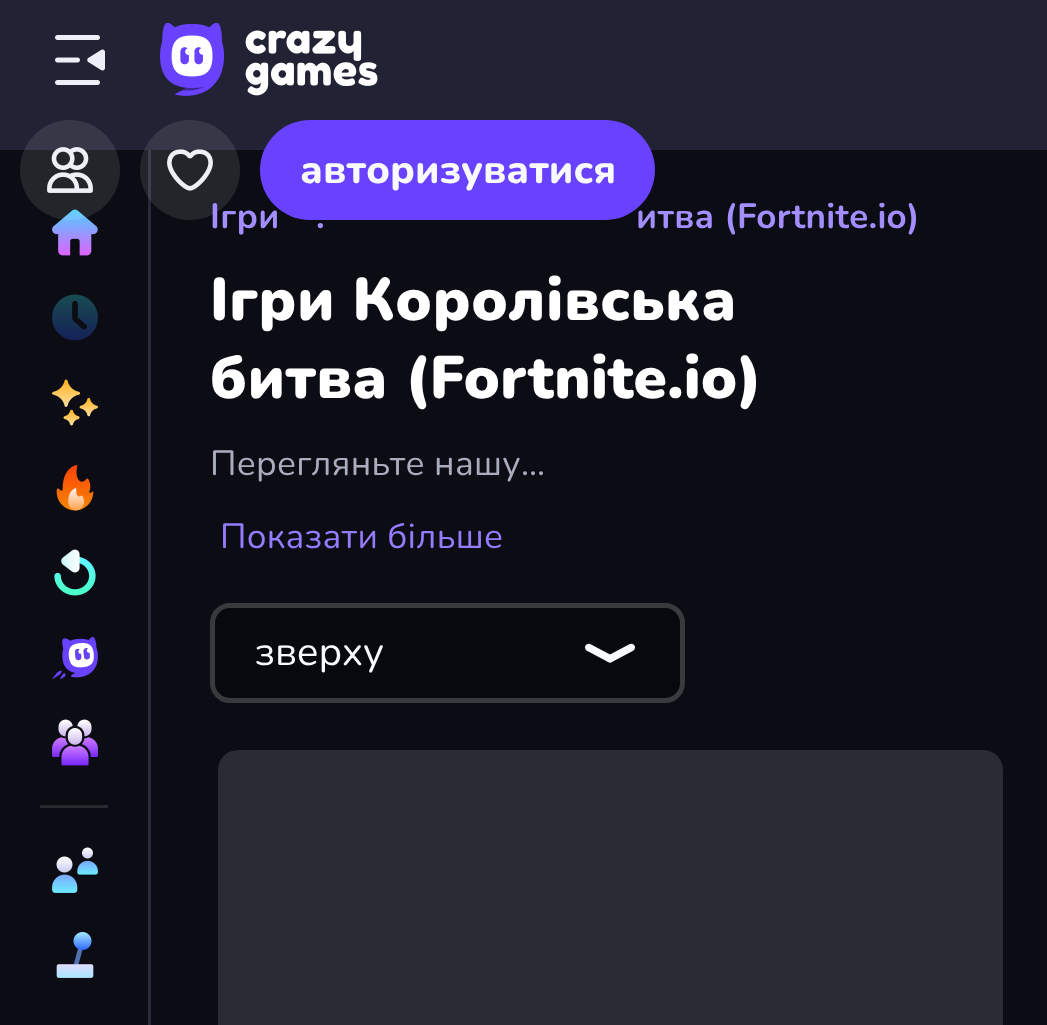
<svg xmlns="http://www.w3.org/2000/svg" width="1047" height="1025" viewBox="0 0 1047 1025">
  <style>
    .t1 { font: bold 35px Nunito; letter-spacing: 0.3px; fill: #a48eff; }
    .t2 { font: 800 40px Nunito; fill: #f9faff; }
    .t3 { font: 900 60px Nunito; letter-spacing: 0.3px; fill: #fff; }
    .t4 { font: 35px Nunito; letter-spacing: 0.3px; fill: #aaadbe; }
    .t5 { font: 35px Nunito; letter-spacing: 0.3px; fill: #957bff; }
    .t6 { font: 40px Nunito; fill: #f9faff; }
  </style>
  <rect width="100%" height="100%" fill="#0c0d14"/>
  <rect x="148" y="150" width="3" height="875" fill="#28293d"/>
  <image x="52" y="209" width="46" height="47" href="images/1.png"/>
  <image x="52" y="294" width="46" height="47" href="images/2.png"/>
  <image x="52" y="379" width="46" height="47" href="images/3.png"/>
  <image x="56" y="465" width="38" height="46" href="images/4.png"/>
  <image x="54" y="549" width="42" height="47" href="images/5.png"/>
  <image x="52" y="636" width="46" height="44" href="images/6.png"/>
  <image x="52" y="719" width="46" height="47" href="images/7.png"/>
  <rect x="40" y="805" width="68" height="3" fill="#292a30"/>
  <image x="52" y="847" width="46" height="46" href="images/8.png"/>
  <image x="56" y="932" width="38" height="46" href="images/9.png"/>
  <rect x="0" y="0" width="1047" height="150" fill="#212233"/>
  <image x="55" y="35" width="50" height="50" href="images/10.png"/>
  <image x="160" y="23" width="65" height="73" href="images/11.png"/>
  <image x="245" y="30" width="133" height="66" href="images/12.png"/>
  <circle cx="70" cy="170" r="50" fill="#ffffff1a"/>
  <image x="47" y="147" width="46" height="46" href="images/13.png"/>
  <circle cx="190" cy="170" r="50" fill="#ffffff1a"/>
  <image x="167" y="149" width="46" height="42" href="images/14.png"/>
  <text x="210" y="228" class="t1">Ігри</text>
  <text x="636" y="228" class="t1">итва (Fortnite.io)</text>
  <rect x="260" y="120" width="395" height="100" rx="50" fill="#6842ff"/>
  <text x="300" y="183" class="t2">авторизуватися</text>
  <text x="316" y="228" class="t1">.</text>
  <text x="210" y="320" class="t3">Ігри Королівська</text>
  <text x="210" y="398" class="t3">битва (Fortnite.io)</text>
  <text x="210" y="475" class="t4">Перегляньте нашу…</text>
  <text x="220" y="548" class="t5">Показати більше</text>
  <rect x="210" y="603" width="475" height="100" rx="20" fill="#08090e"/>
  <rect x="212.5" y="605.5" width="470" height="95" rx="17.5" fill="none" stroke="#ffffff33" stroke-width="5"/>
  <text x="255" y="665" class="t6">зверху</text>
  <image x="585" y="643" width="50" height="20" href="images/15.png"/>
  <rect x="218" y="750" width="785" height="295" rx="20" fill="#2b2c33"/>
</svg>
